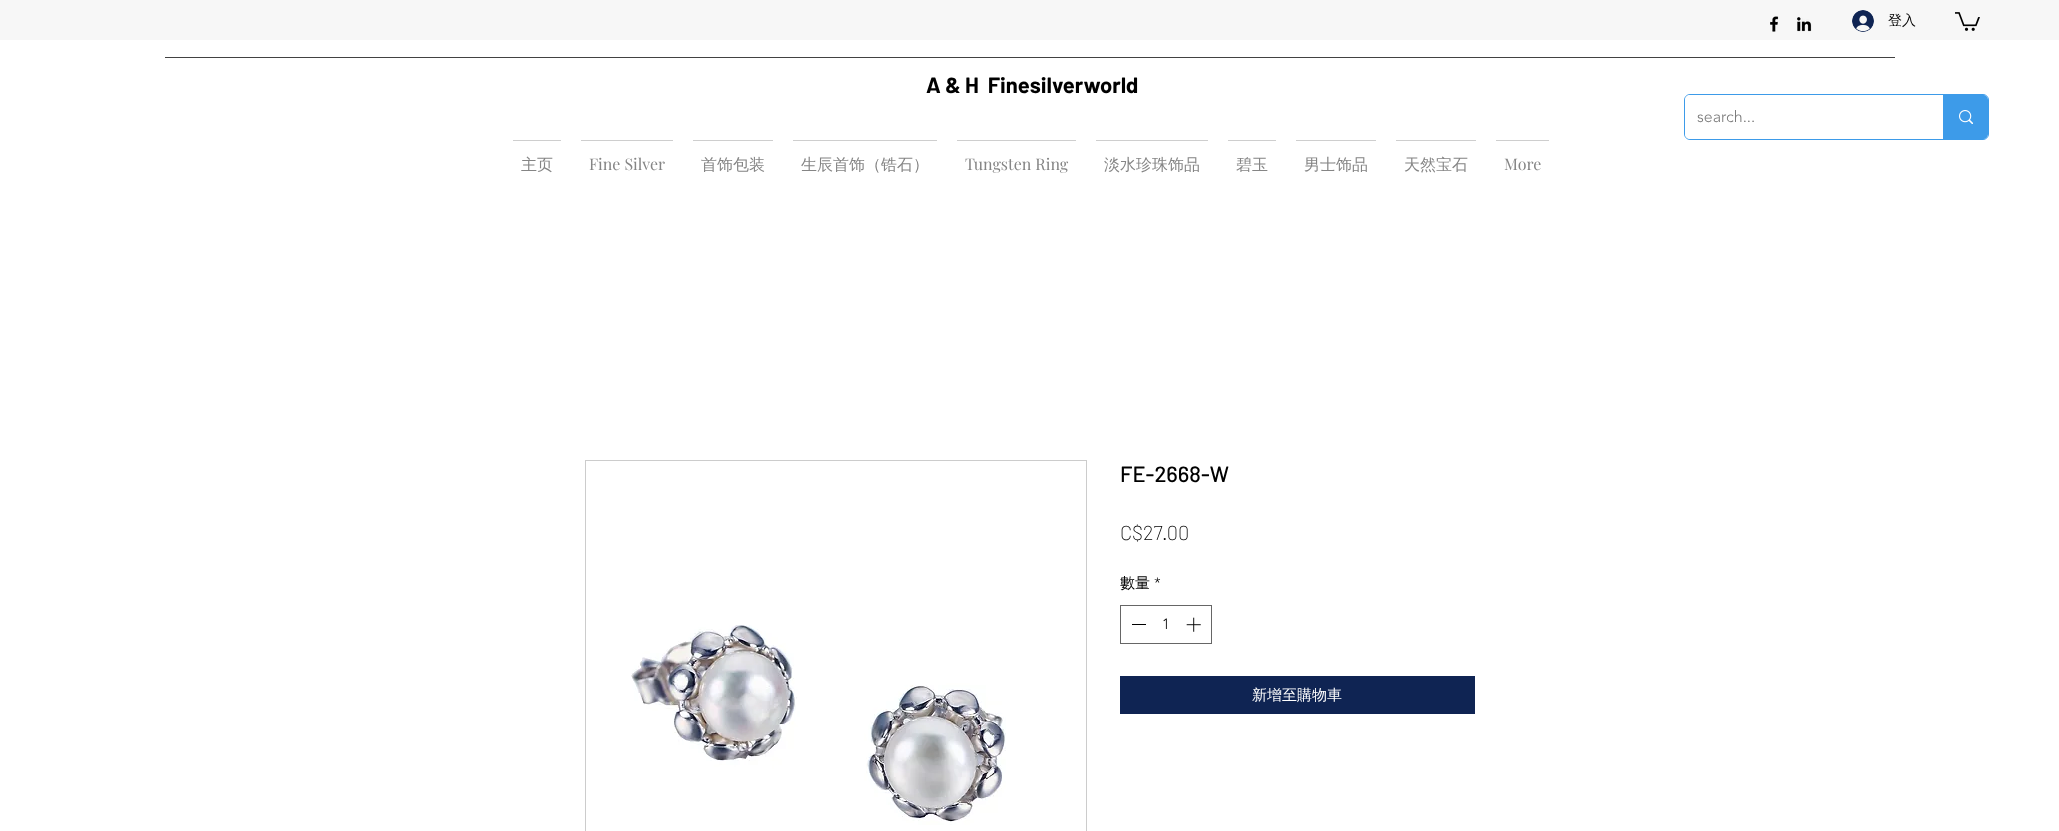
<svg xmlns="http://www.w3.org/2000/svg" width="2059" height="831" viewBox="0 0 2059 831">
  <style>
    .t1 { font: 500 14px WenQuanYi Zen Hei; fill: #000; }
    .t2 { font: bold 22px Barlow; fill: #000; }
    .t3 { font: 300 16px 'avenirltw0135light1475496'; fill: #787878; }
    .t4 { font: 500 16px WenQuanYi Zen Hei; fill: #858585; }
    .t5 { font: 16px Playfair Display; fill: #858585; }
    .t6 { font: 500 22px Barlow; fill: #000; }
    .t7 { font: 200 20px Barlow; fill: #000; }
    .t8 { font: 500 15px WenQuanYi Zen Hei; fill: #000; }
    .t9 { font: 300 15px 'avenirltw0135light1475496'; fill: #000; }
    .t10 { font: 500 15px WenQuanYi Zen Hei; fill: #fff; }
  </style>
  <rect width="100%" height="100%" fill="#fff"/>
  <rect x="0" y="0" width="2059" height="40" fill="#f7f7f7"/>
  <image x="1770" y="16" width="9" height="16" href="images/1.png"/>
  <image x="1797" y="17" width="15" height="15" href="images/2.png"/>
  <image x="1852" y="10" width="22" height="22" href="images/3.png"/>
  <text x="1888" y="25" class="t1">登入</text>
  <image x="1955" y="12" width="25" height="19" href="images/4.png"/>
  <rect x="165" y="57" width="1730" height="1" fill="#424242"/>
  <text x="926" y="93" class="t2" xml:space="preserve">A &amp; H  Finesilverworld</text>
  <rect x="1684.5" y="94.5" width="304" height="45" rx="5.5" fill="none" stroke="#3d9be9"/>
  <rect x="1685" y="95" width="303" height="44" rx="5" fill="#fff"/>
  <text x="1697" y="122" class="t3">search...</text>
  <path d="M1943 95H1983C1986 95 1988 97 1988 100V134C1988 137 1986 139 1983 139H1943Z" fill="#3d9be9"/>
  <image x="1959" y="110" width="14" height="14" href="images/5.png"/>
  <rect x="513" y="140" width="48" height="1" fill="#cecece"/>
  <text x="521" y="170" class="t4">主页</text>
  <rect x="581" y="140" width="92" height="1" fill="#cecece"/>
  <text x="589" y="170" class="t5">Fine Silver</text>
  <rect x="693" y="140" width="80" height="1" fill="#cecece"/>
  <text x="701" y="170" class="t4">首饰包装</text>
  <rect x="793" y="140" width="144" height="1" fill="#cecece"/>
  <text x="801" y="170" class="t4">生辰首饰（锆石）</text>
  <rect x="957" y="140" width="119" height="1" fill="#cecece"/>
  <text x="965" y="170" class="t5">Tungsten Ring</text>
  <rect x="1096" y="140" width="112" height="1" fill="#cecece"/>
  <text x="1104" y="170" class="t4">淡水珍珠饰品</text>
  <rect x="1228" y="140" width="48" height="1" fill="#cecece"/>
  <text x="1236" y="170" class="t4">碧玉</text>
  <rect x="1296" y="140" width="80" height="1" fill="#cecece"/>
  <text x="1304" y="170" class="t4">男士饰品</text>
  <rect x="1396" y="140" width="80" height="1" fill="#cecece"/>
  <text x="1404" y="170" class="t4">天然宝石</text>
  <rect x="1496" y="140" width="53" height="1" fill="#cecece"/>
  <text x="1504" y="170" class="t5">More</text>
  <rect x="585.5" y="460.5" width="501" height="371" fill="none" stroke="#ccc"/>
  <image x="631" y="625" width="375" height="200" href="images/6.png"/>
  <text x="1120" y="482" class="t6">FE-2668-W</text>
  <text x="1120" y="540" class="t7">C$27.00</text>
  <text x="1120" y="588" class="t8">數量</text>
  <text x="1154" y="588" class="t9">*</text>
  <rect x="1120.5" y="605.5" width="91" height="38" fill="none" stroke="#666"/>
  <rect x="1132" y="624" width="14" height="1" fill="#000"/>
  <text x="1162" y="629" class="t9">1</text>
  <image x="1186" y="617" width="15" height="15" href="images/7.png"/>
  <rect x="1120" y="676" width="355" height="38" fill="#0f2453"/>
  <text x="1252" y="700" class="t10">新增至購物車</text>
</svg>
